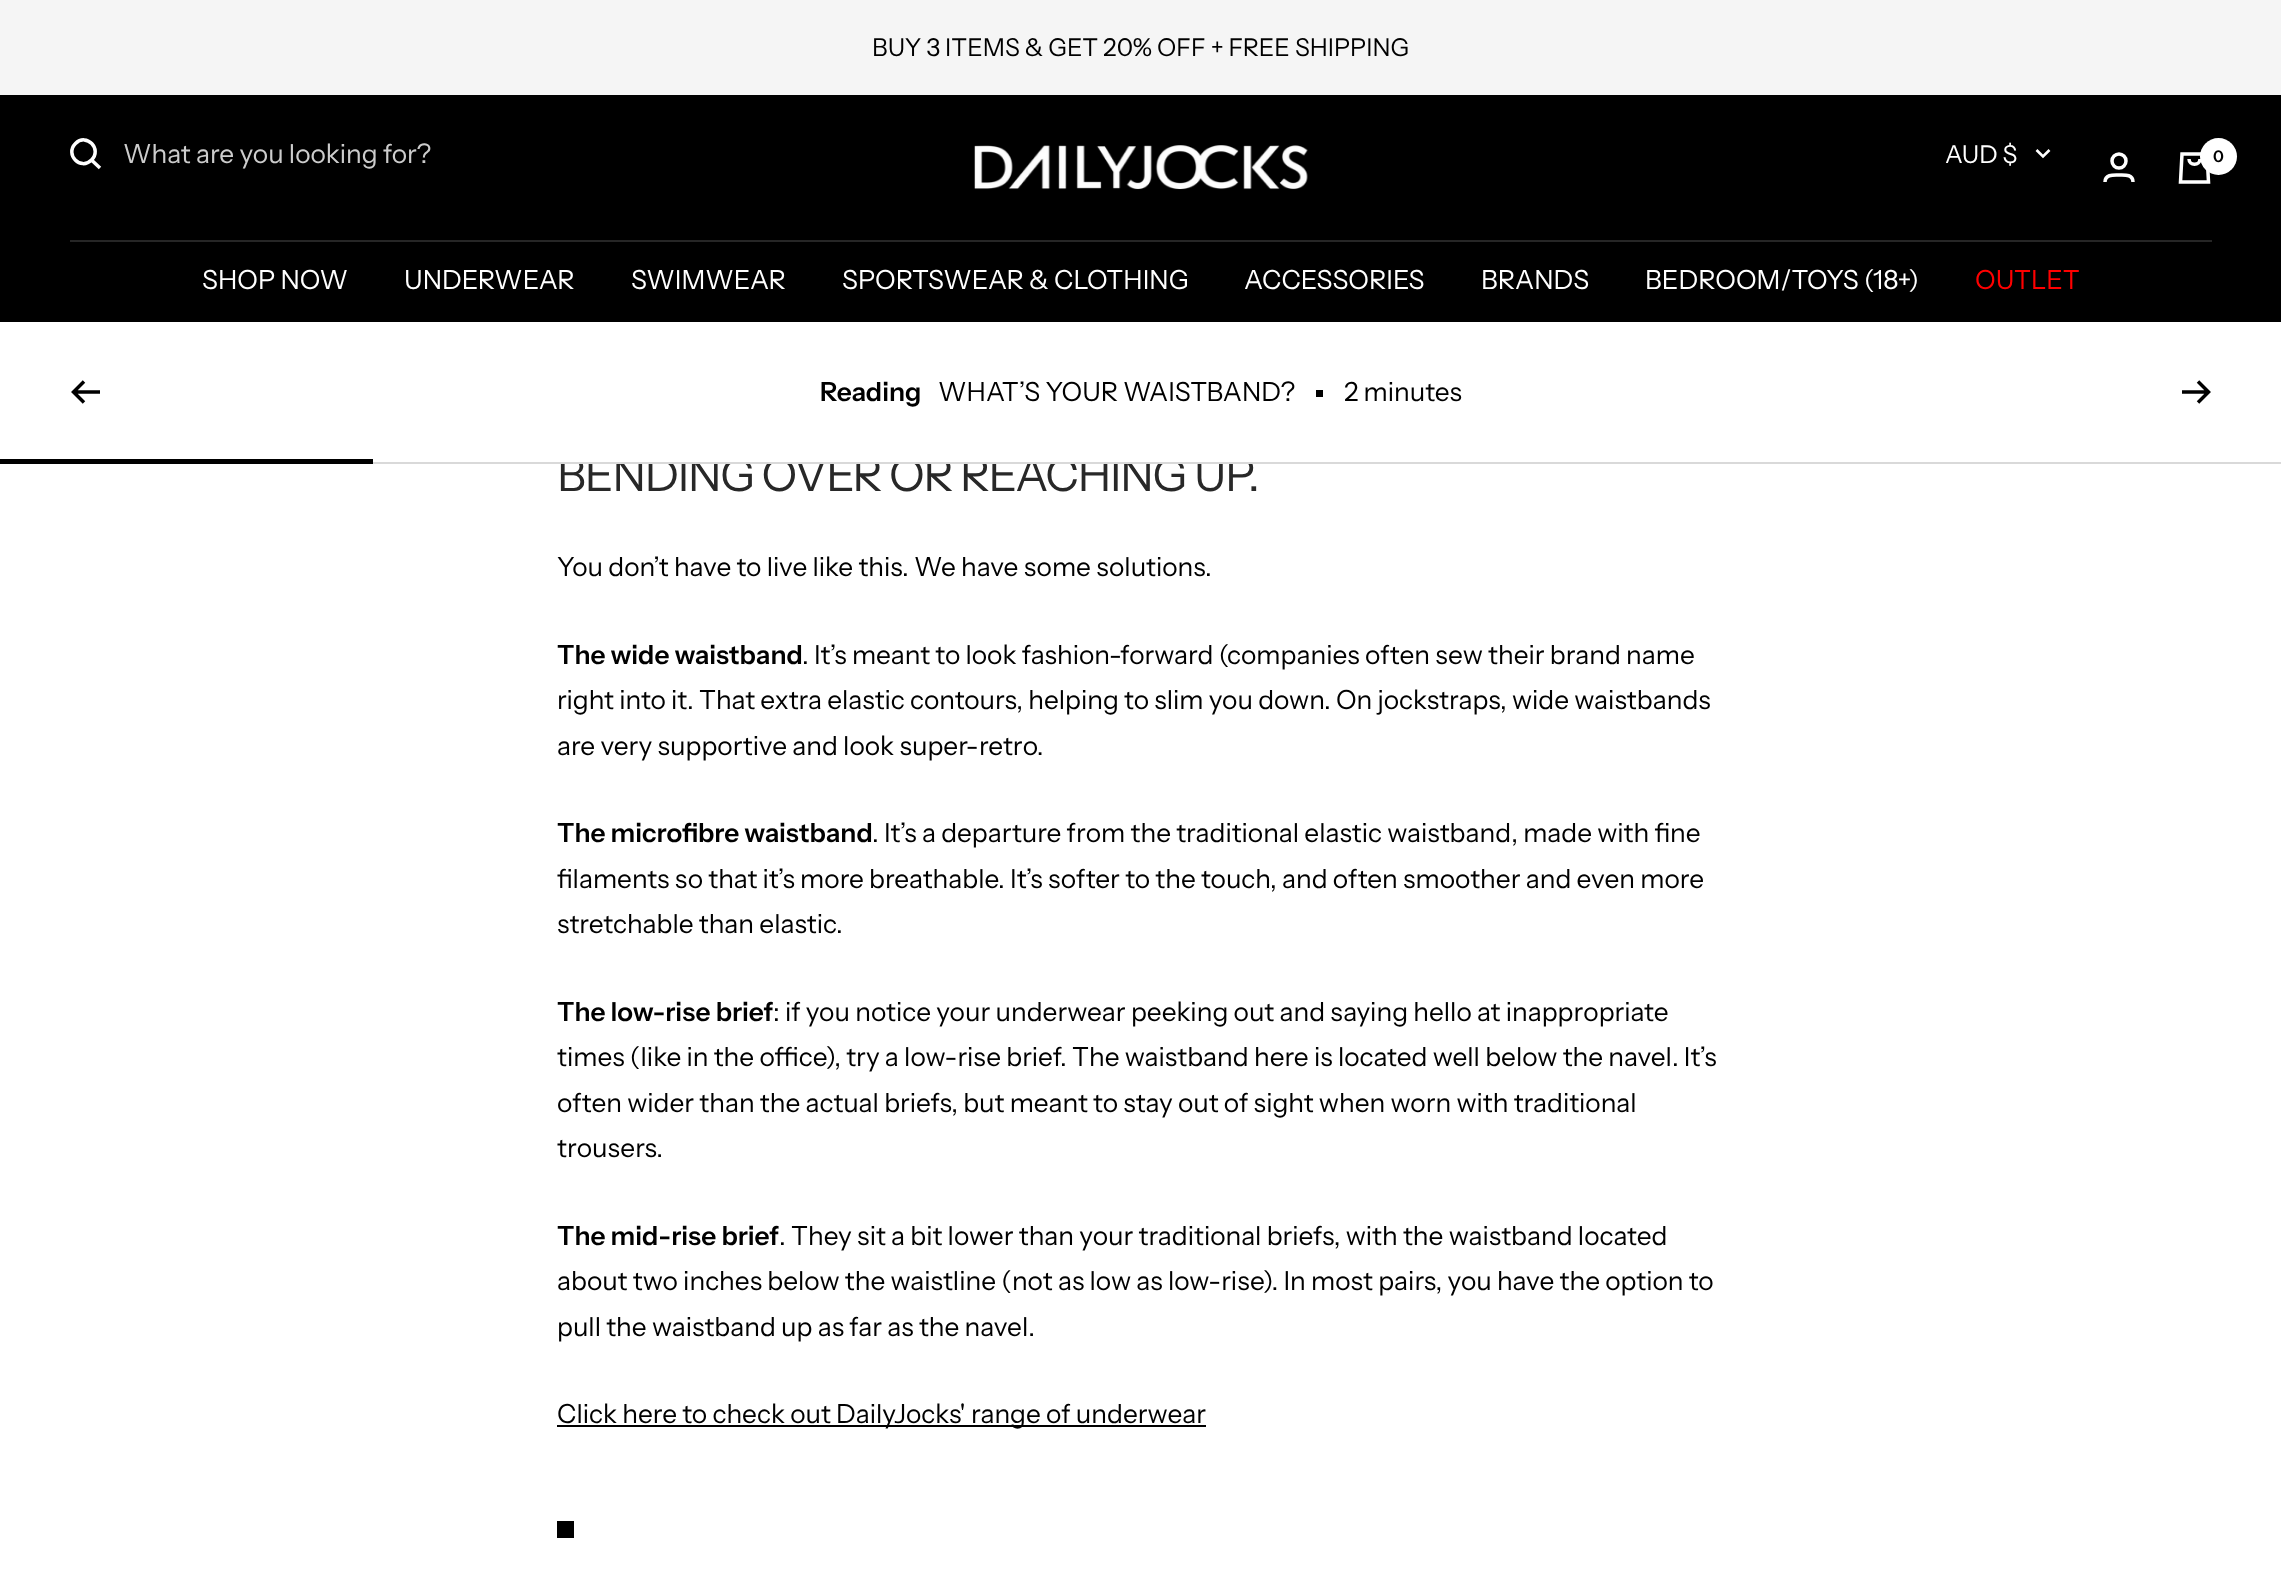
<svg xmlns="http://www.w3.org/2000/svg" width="2281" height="1576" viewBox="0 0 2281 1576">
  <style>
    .t1 { font: 24.5px Instrument Sans; fill: #000; }
    .t2 { font: 26.25px Instrument Sans; fill: #ccc; }
    .t3 { font: 24.5px Instrument Sans; fill: #fff; }
    .t4 { font: 600 16px Instrument Sans; fill: #000; }
    .t5 { font: 26.25px Instrument Sans; fill: #fff; }
    .t6 { font: 26.25px Instrument Sans; fill: #f00; }
    .t7 { font: 45.5px Instrument Sans; letter-spacing: -1.25px; fill: #282828; }
    .t8 { font: 600 26.25px Instrument Sans; fill: #000; }
    .t9 { font: 26.25px Instrument Sans; fill: #000; }
  </style>
  <rect width="100%" height="100%" fill="#fff"/>
  <rect x="0" y="0" width="2281" height="95" fill="#f5f5f5"/>
  <text x="872" y="56" class="t1">BUY 3 ITEMS &amp; GET 20% OFF + FREE SHIPPING</text>
  <rect x="0" y="95" width="2281" height="227" fill="#000"/>
  <path d="M91.5 160C102.5 149 86.5 132.5 75.5 143.5C64.5 154.5 80.5 171 91.5 160ZM91.5 160L100 168" fill="none" stroke="#fff" stroke-width="3.5"/>
  <text x="123" y="163" class="t2">What are you looking for?</text>
  <image x="974" y="145" width="334" height="45" href="images/1.png"/>
  <text x="1945" y="163" class="t3">AUD $</text>
  <path d="M2036.5 150L2043 156.5L2049.5 150" fill="none" stroke="#fff" stroke-width="2.6"/>
  <circle cx="2119" cy="161" r="7" fill="none" stroke="#fff" stroke-width="3.5"/>
  <path d="M2105 182C2105 174 2114 175 2119 175C2124.5 175 2133 174 2133 182" fill="none" stroke="#fff" stroke-width="3.5"/>
  <path d="M2182 154H2207L2208.5 182H2180.5ZM2189 159C2189 166 2200 166 2200 159" fill="none" stroke="#fff" stroke-width="3.5"/>
  <circle cx="2218.5" cy="156.5" r="18.5" fill="#fff"/>
  <text x="2213" y="162" class="t4">0</text>
  <rect x="70" y="240" width="2142" height="2" fill="#262626"/>
  <text x="202" y="289" class="t5">SHOP NOW</text>
  <text x="404" y="289" class="t5">UNDERWEAR</text>
  <text x="631" y="289" class="t5">SWIMWEAR</text>
  <text x="842" y="289" class="t5">SPORTSWEAR &amp; CLOTHING</text>
  <text x="1244" y="289" class="t5">ACCESSORIES</text>
  <text x="1481" y="289" class="t5">BRANDS</text>
  <text x="1645" y="289" class="t5">BEDROOM/TOYS (18+)</text>
  <text x="1975" y="289" class="t6">OUTLET</text>
  <text x="557" y="491" class="t7">BENDING OVER OR REACHING UP.</text>
  <rect x="560" y="457" width="692" height="5" fill="#fff"/>
  <rect x="373" y="462" width="1908" height="2" fill="#d9d9d9"/>
  <path d="M100 392H73.5M84 381.5L73.5 392L84 402.5" fill="none" stroke="#000" stroke-width="3.5"/>
  <text x="820" y="401" class="t8">Reading</text>
  <text x="938" y="401" class="t9">WHAT’S YOUR WAISTBAND?</text>
  <rect x="1316" y="390" width="7" height="7" fill="#000"/>
  <text x="1344" y="401" class="t9">2 minutes</text>
  <path d="M2182 392H2208.5M2198 381.5L2208.5 392L2198 402.5" fill="none" stroke="#000" stroke-width="3.5"/>
  <path d="M0 462V464H373V460H372V462Z" fill="#000"/>
  <rect x="0" y="459" width="373" height="3" fill="#000"/>
  <text x="557" y="576" class="t9">You don’t have to live like this. We have some solutions.</text>
  <text x="557" y="664" class="t8">The wide waistband</text>
  <text x="802" y="664" class="t9">. It’s meant to look fashion-forward (companies often sew their brand name</text>
  <text x="557" y="709" class="t9">right into it. That extra elastic contours, helping to slim you down. On jockstraps, wide waistbands</text>
  <text x="557" y="755" class="t9">are very supportive and look super-retro.</text>
  <text x="557" y="842" class="t8">The microfibre waistband</text>
  <text x="872" y="842" class="t9">. It’s a departure from the traditional elastic waistband, made with fine</text>
  <text x="557" y="888" class="t9">filaments so that it’s more breathable. It’s softer to the touch, and often smoother and even more</text>
  <text x="557" y="933" class="t9">stretchable than elastic.</text>
  <text x="557" y="1021" class="t8">The low-rise brief</text>
  <text x="773" y="1021" class="t9">: if you notice your underwear peeking out and saying hello at inappropriate</text>
  <text x="557" y="1066" class="t9">times (like in the office), try a low-rise brief. The waistband here is located well below the navel. It’s</text>
  <text x="557" y="1112" class="t9">often wider than the actual briefs, but meant to stay out of sight when worn with traditional</text>
  <text x="557" y="1157" class="t9">trousers.</text>
  <text x="557" y="1245" class="t8">The mid-rise brief</text>
  <text x="779" y="1245" class="t9">. They sit a bit lower than your traditional briefs, with the waistband located</text>
  <text x="557" y="1290" class="t9">about two inches below the waistline (not as low as low-rise). In most pairs, you have the option to</text>
  <text x="557" y="1336" class="t9">pull the waistband up as far as the navel.</text>
  <rect x="557" y="1425" width="649" height="2" fill="#000"/>
  <text x="557" y="1423" class="t9">Click here to check out DailyJocks' range of underwear</text>
  <rect x="557" y="1521" width="17" height="17" fill="#000"/>
</svg>
